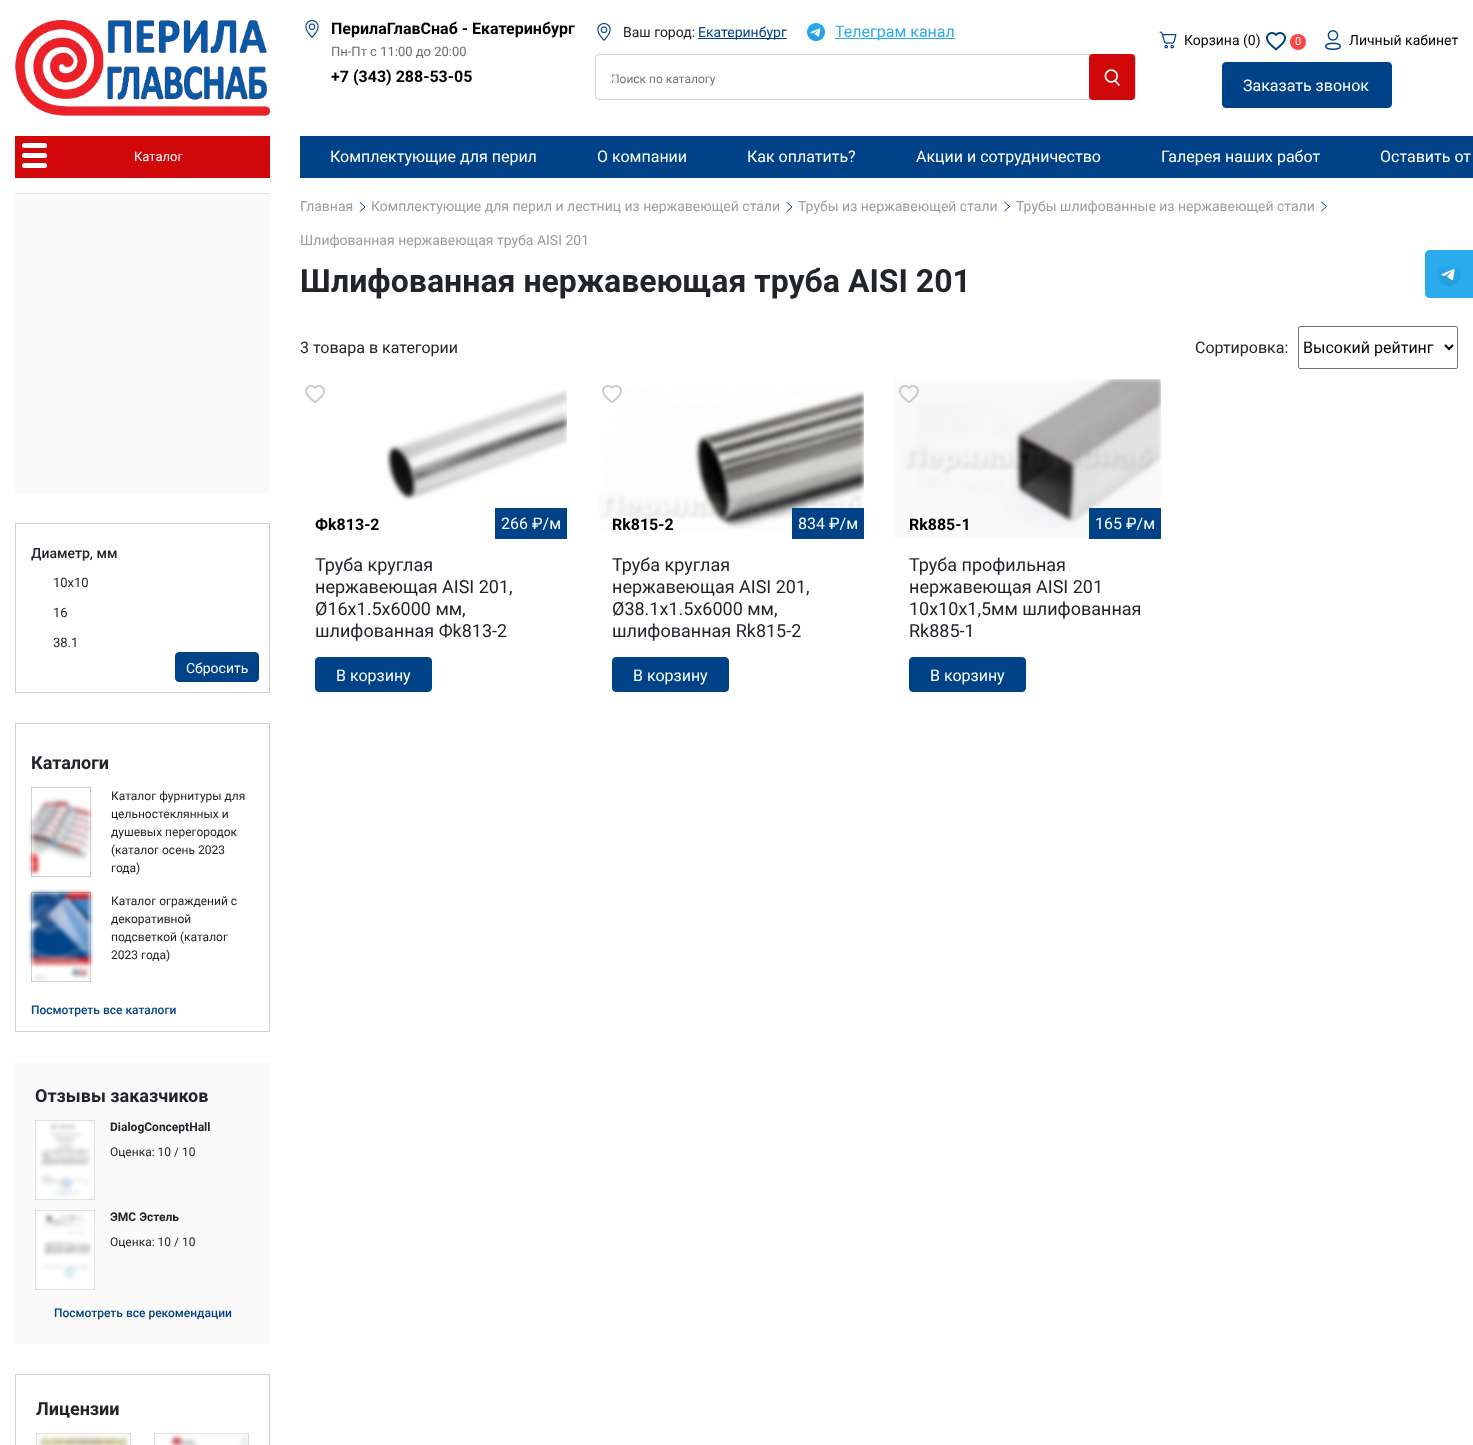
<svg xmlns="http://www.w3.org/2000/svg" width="1473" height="1445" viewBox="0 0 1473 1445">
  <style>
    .t1 { font: bold 16px Roboto; fill: #000; }
    .t2 { font: 13px Roboto; fill: #6b6b6b; }
    .t3 { font: 14px Roboto; fill: #212529; }
    .t4 { font: 14px Roboto; fill: #004288; }
    .t5 { font: 16px Roboto; fill: #2aabee; }
    .t6 { font: 12px Roboto; fill: #757575; }
    .t7 { font: 20px Roboto; fill: #eaeaea; }
    .t8 { font: 14px Roboto; fill: #000; }
    .t9 { font: 11px Roboto; fill: #fff; }
    .t10 { font: 16px Roboto; fill: #fff; }
    .t11 { font: 13px Roboto; fill: #fff; }
    .t12 { font: 500 14px Roboto; fill: #212529; }
    .t13 { font: 13px Roboto; fill: #212529; }
    .t14 { font: 14px Roboto; fill: #fff; }
    .t15 { font: bold 18px Roboto; fill: #212529; }
    .t16 { font: 12px Roboto; fill: #212529; }
    .t17 { font: 500 12px Roboto; fill: #004288; }
    .t18 { font: bold 12px Roboto; fill: #212529; }
    .t19 { font: 14px Roboto; fill: #9d9d9d; }
    .t20 { font: bold 32px Roboto; fill: #212529; }
    .t21 { font: 16px Roboto; fill: #212529; }
    .t22 { font: 16px Roboto; fill: #000; }
    .t23 { font: 18px Roboto; fill: #212529; }
  </style>
  <rect width="100%" height="100%" fill="#fff"/>
  <image x="15" y="20" width="255" height="96" href="images/1.png"/>
  <image x="305" y="20" width="14" height="18" href="images/2.png"/>
  <text x="331" y="34" class="t1">ПерилаГлавСнаб - Екатеринбург</text>
  <text x="331" y="56" class="t2">Пн-Пт с 11:00 до 20:00</text>
  <text x="331" y="82" class="t1">+7 (343) 288-53-05</text>
  <image x="597" y="23" width="14" height="18" href="images/2.png"/>
  <text x="623" y="37" class="t3">Ваш город:</text>
  <rect x="698" y="38" width="89" height="1" fill="#004288"/>
  <text x="698" y="37" class="t4">Екатеринбург</text>
  <image x="807" y="23" width="18" height="18" href="images/3.png"/>
  <rect x="835" y="38" width="120" height="1" fill="#2aabee"/>
  <text x="835" y="37" class="t5">Телеграм канал</text>
  <rect x="595.5" y="54.5" width="540" height="45" rx="3.5" fill="none" stroke="#d0d0d0"/>
  <text x="611" y="83" class="t6">Поиск по каталогу</text>
  <text x="608" y="84" class="t7">x</text>
  <rect x="1089" y="54" width="46" height="46" rx="4" fill="#d0080a"/>
  <image x="1104" y="69" width="16" height="17" href="images/4.png"/>
  <image x="1159" y="31" width="18" height="18" href="images/5.png"/>
  <text x="1184" y="45" class="t8">Корзина (0)</text>
  <image x="1266" y="32" width="20" height="19" href="images/6.png"/>
  <circle cx="1298" cy="42" r="8" fill="#f44"/>
  <text x="1295" y="45" class="t9">0</text>
  <image x="1325" y="30" width="16" height="20" href="images/7.png"/>
  <text x="1349" y="45" class="t8">Личный кабинет</text>
  <rect x="1222.5" y="62.5" width="169" height="45" rx="3.5" fill="#004288" stroke="#004288"/>
  <text x="1243" y="91" class="t10">Заказать звонок</text>
  <rect x="15" y="136" width="255" height="42" fill="#d0080a"/>
  <rect x="22" y="143" width="25" height="5" rx="2.5" fill="#fff"/>
  <rect x="22" y="153" width="25" height="5" rx="2.5" fill="#fff"/>
  <rect x="22" y="163" width="25" height="5" rx="2.5" fill="#fff"/>
  <text x="134" y="161" class="t11">Каталог</text>
  <rect x="15" y="194" width="255" height="299" fill="#fafafa"/>
  <rect x="15" y="193" width="255" height="1" fill="#dee2e6"/>
  <rect x="15.5" y="523.5" width="254" height="169" fill="none" stroke="#d0d0d0"/>
  <text x="31" y="558" class="t12">Диаметр, мм</text>
  <text x="53" y="587" class="t13">10x10</text>
  <text x="53" y="617" class="t13">16</text>
  <text x="53" y="647" class="t13">38.1</text>
  <rect x="175.5" y="652.5" width="83" height="29" rx="3.5" fill="#004288" stroke="#004288"/>
  <text x="186" y="673" class="t14">Сбросить</text>
  <rect x="15.5" y="723.5" width="254" height="308" fill="none" stroke="#d0d0d0"/>
  <text x="31" y="769" class="t15">Каталоги</text>
  <rect x="31.5" y="787.5" width="59" height="89" fill="none" stroke="#b6b6b6"/>
  <image x="28" y="787" width="66" height="90" href="images/8.png"/>
  <text x="111" y="800" class="t16">Каталог фурнитуры для</text>
  <text x="111" y="818" class="t16">цельностеклянных и</text>
  <text x="111" y="836" class="t16">душевых перегородок</text>
  <text x="111" y="854" class="t16">(каталог осень 2023</text>
  <text x="111" y="872" class="t16">года)</text>
  <rect x="31.5" y="892.5" width="59" height="89" fill="none" stroke="#b6b6b6"/>
  <image x="28" y="889" width="66" height="93" href="images/9.png"/>
  <text x="111" y="905" class="t16">Каталог ограждений с</text>
  <text x="111" y="923" class="t16">декоративной</text>
  <text x="111" y="941" class="t16">подсветкой (каталог</text>
  <text x="111" y="959" class="t16">2023 года)</text>
  <text x="31" y="1014" class="t17">Посмотреть все каталоги</text>
  <rect x="15" y="1062" width="255" height="282" fill="#fafafa"/>
  <text x="35" y="1102" class="t15">Отзывы заказчиков</text>
  <rect x="35.5" y="1120.5" width="59" height="79" fill="none" stroke="#d0d0d0"/>
  <image x="35" y="1120" width="60" height="80" href="images/10.png"/>
  <text x="110" y="1131" class="t18">DialogConceptHall</text>
  <text x="110" y="1156" class="t16">Оценка: 10 / 10</text>
  <rect x="35.5" y="1210.5" width="59" height="79" fill="none" stroke="#d0d0d0"/>
  <image x="35" y="1210" width="60" height="80" href="images/11.png"/>
  <text x="110" y="1221" class="t18">ЭМС Эстель</text>
  <text x="110" y="1246" class="t16">Оценка: 10 / 10</text>
  <text x="54" y="1317" class="t17">Посмотреть все рекомендации</text>
  <rect x="15.5" y="1374.5" width="254" height="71" fill="none" stroke="#d0d0d0"/>
  <text x="36" y="1415" class="t15">Лицензии</text>
  <rect x="36.5" y="1433.5" width="94" height="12" fill="none" stroke="#d0d0d0"/>
  <image x="36" y="1433" width="95" height="12" href="images/12.png"/>
  <rect x="154.5" y="1433.5" width="94" height="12" fill="none" stroke="#d0d0d0"/>
  <image x="154" y="1433" width="96" height="12" href="images/13.png"/>
  <rect x="300" y="136" width="1173" height="42" fill="#004288"/>
  <text x="330" y="162" class="t10">Комплектующие для перил</text>
  <text x="597" y="162" class="t10">О компании</text>
  <text x="747" y="162" class="t10">Как оплатить?</text>
  <text x="916" y="162" class="t10">Акции и сотрудничество</text>
  <text x="1161" y="162" class="t10">Галерея наших работ</text>
  <text x="1380" y="162" class="t10">Оставить от</text>
  <text x="300" y="211" class="t19">Главная</text>
  <path d="M360 211.5L365 207L360 202.5" fill="none" stroke="#004288" stroke-linecap="round" stroke-linejoin="round"/>
  <text x="371" y="211" class="t19">Комплектующие для перил и лестниц из нержавеющей стали</text>
  <path d="M787 211.5L792 207L787 202.5" fill="none" stroke="#004288" stroke-linecap="round" stroke-linejoin="round"/>
  <text x="798" y="211" class="t19">Трубы из нержавеющей стали</text>
  <path d="M1004.5 211L1009.5 206.5L1004.5 202" fill="none" stroke="#004288" stroke-linecap="round" stroke-linejoin="round"/>
  <text x="1016" y="211" class="t19">Трубы шлифованные из нержавеющей стали</text>
  <path d="M1321.5 211L1326.5 206.5L1321.5 202" fill="none" stroke="#004288" stroke-linecap="round" stroke-linejoin="round"/>
  <text x="300" y="245" class="t19">Шлифованная нержавеющая труба AISI 201</text>
  <text x="300" y="292" class="t20">Шлифованная нержавеющая труба AISI 201</text>
  <text x="300" y="353" class="t21">3 товара в категории</text>
  <text x="1195" y="353" class="t21">Сортировка:</text>
  <rect x="1298.5" y="326.5" width="159" height="42" rx="1.5" fill="none" stroke="#767676"/>
  <path d="M1445 345L1449 349L1453 345" fill="none" stroke="#000" stroke-width="2"/>
  <text x="1303" y="353" class="t22">Высокий рейтинг</text>
  <image x="305" y="385" width="20" height="18" href="images/14.png"/>
  <image x="385" y="389" width="182" height="112" href="images/15.png"/>
  <text x="315" y="530" class="t1">Фk813-2</text>
  <rect x="495" y="508" width="72" height="31" fill="#004288"/>
  <text x="501" y="529" class="t10">266 ₽/м</text>
  <text x="315" y="571" class="t23">Труба круглая</text>
  <text x="315" y="593" class="t23">нержавеющая AISI 201,</text>
  <text x="315" y="615" class="t23">Ø16x1.5х6000 мм,</text>
  <text x="315" y="637" class="t23">шлифованная Фk813-2</text>
  <rect x="315.5" y="657.5" width="116" height="34" rx="3.5" fill="#004288" stroke="#004288"/>
  <text x="336" y="681" class="t10">В корзину</text>
  <image x="599" y="390" width="265" height="140" href="images/17.png"/>
  <image x="602" y="385" width="20" height="18" href="images/16.png"/>
  <text x="612" y="530" class="t1">Rk815-2</text>
  <rect x="792" y="508" width="72" height="31" fill="#004288"/>
  <text x="798" y="529" class="t10">834 ₽/м</text>
  <text x="612" y="571" class="t23">Труба круглая</text>
  <text x="612" y="593" class="t23">нержавеющая AISI 201,</text>
  <text x="612" y="615" class="t23">Ø38.1x1.5х6000 мм,</text>
  <text x="612" y="637" class="t23">шлифованная Rk815-2</text>
  <rect x="612.5" y="657.5" width="116" height="34" rx="3.5" fill="#004288" stroke="#004288"/>
  <text x="633" y="681" class="t10">В корзину</text>
  <image x="894" y="379" width="267" height="160" href="images/19.png"/>
  <image x="899" y="385" width="20" height="18" href="images/18.png"/>
  <text x="909" y="530" class="t1">Rk885-1</text>
  <rect x="1089" y="508" width="72" height="31" fill="#004288"/>
  <text x="1095" y="529" class="t10">165 ₽/м</text>
  <text x="909" y="571" class="t23">Труба профильная</text>
  <text x="909" y="593" class="t23">нержавеющая AISI 201</text>
  <text x="909" y="615" class="t23">10х10х1,5мм шлифованная</text>
  <text x="909" y="637" class="t23">Rk885-1</text>
  <rect x="909.5" y="657.5" width="116" height="34" rx="3.5" fill="#004288" stroke="#004288"/>
  <text x="930" y="681" class="t10">В корзину</text>
  <path d="M1430 250H1473V298H1430C1427 298 1425 296 1425 293V255C1425 252 1427 250 1430 250Z" fill="#2aabee"/>
  <image x="1437" y="266" width="24" height="20" href="images/20.png"/>
</svg>
